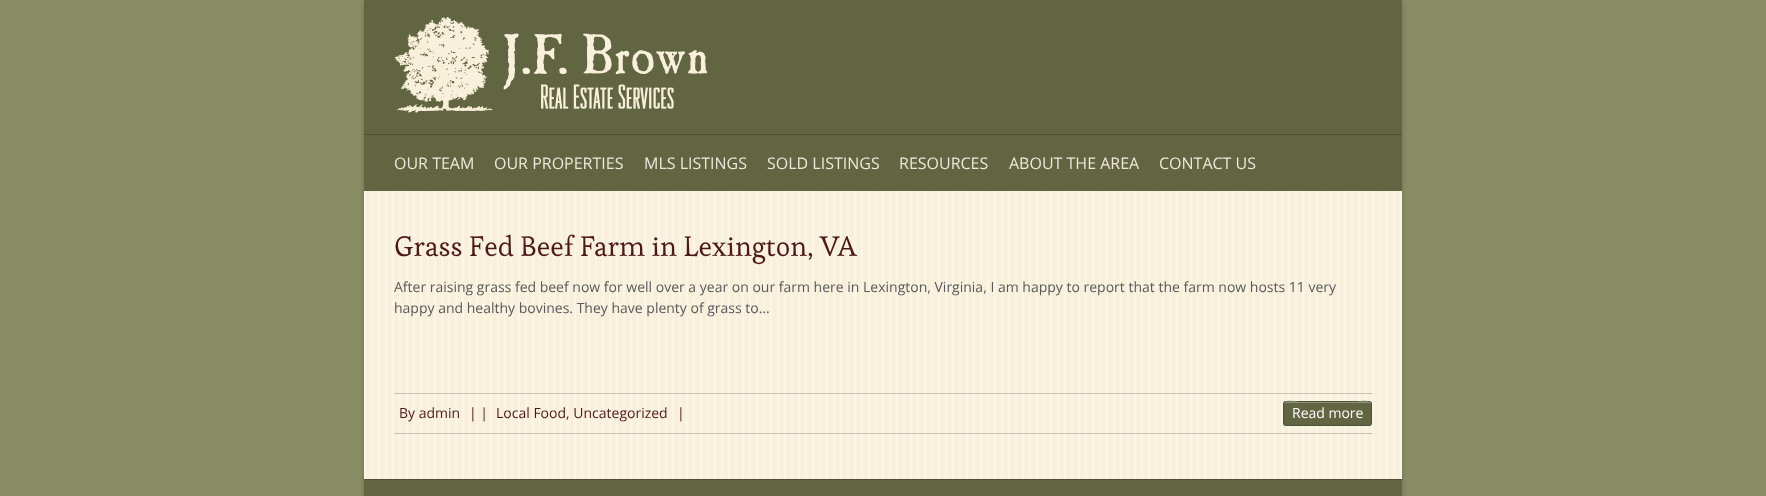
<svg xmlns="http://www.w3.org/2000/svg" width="1766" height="496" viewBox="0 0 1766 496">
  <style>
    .t1 { font: 16px Open Sans; fill: #ede7d9; }
    .t2 { font: 28px Esteban; fill: #4e1818; }
    .t3 { font: 14px Open Sans; fill: #58595b; }
    .t4 { font: 14px Open Sans; fill: #4e1818; }
    .t5 { font: 14px Open Sans; fill: #fff; }
  </style>
  <rect width="100%" height="100%" fill="#888d65"/>
  <rect x="364" y="0" width="1038" height="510" rx="6" fill="#00000033" filter="blur(2.5px)"/>
  <rect x="364" y="191" width="1038" height="288" fill="#f8f0da"/>
  <image x="364" y="191" width="1038" height="288" href="images/1.png"/>
  <rect x="364" y="0" width="1038" height="191" fill="#616541"/>
  <image x="395" y="17" width="312" height="96" href="images/2.png"/>
  <rect x="364" y="134" width="1038" height="1" fill="#4e5134"/>
  <text x="394" y="169" class="t1">OUR TEAM</text>
  <text x="494" y="169" class="t1">OUR PROPERTIES</text>
  <text x="644" y="169" class="t1">MLS LISTINGS</text>
  <text x="767" y="169" class="t1">SOLD LISTINGS</text>
  <text x="899" y="169" class="t1">RESOURCES</text>
  <text x="1009" y="169" class="t1">ABOUT THE AREA</text>
  <text x="1159" y="169" class="t1">CONTACT US</text>
  <text x="394" y="256" class="t2">Grass Fed Beef Farm in Lexington, VA</text>
  <text x="394" y="292" class="t3">After raising grass fed beef now for well over a year on our farm here in Lexington, Virginia, I am happy to report that the farm now hosts 11 very</text>
  <text x="394" y="313" class="t3">happy and healthy bovines. They have plenty of grass to…</text>
  <rect x="394" y="393" width="978" height="1" fill="#00000033"/>
  <rect x="394" y="433" width="978" height="1" fill="#00000033"/>
  <text x="399" y="418" class="t4">By admin</text>
  <text x="469" y="418" class="t4">| |</text>
  <text x="496" y="418" class="t4">Local Food, Uncategorized</text>
  <text x="677" y="418" class="t4">|</text>
  <rect x="1283" y="401" width="89" height="25" rx="3" fill="#616541"/>
  <path d="M1286 403H1369C1370 403 1371 404 1371 405C1371 398 1358 402 1355 402H1300C1297 402 1284 398 1284 405C1284 404 1285 403 1286 403Z" fill="#90937a"/>
  <rect x="1283.5" y="401.5" width="88" height="24" rx="2.5" fill="none" stroke="#00000033"/>
  <text x="1292" y="418" class="t5">Read more</text>
  <rect x="364" y="480" width="1038" height="16" fill="#616541"/>
  <rect x="364" y="479" width="1038" height="1" fill="#4e5134"/>
</svg>
